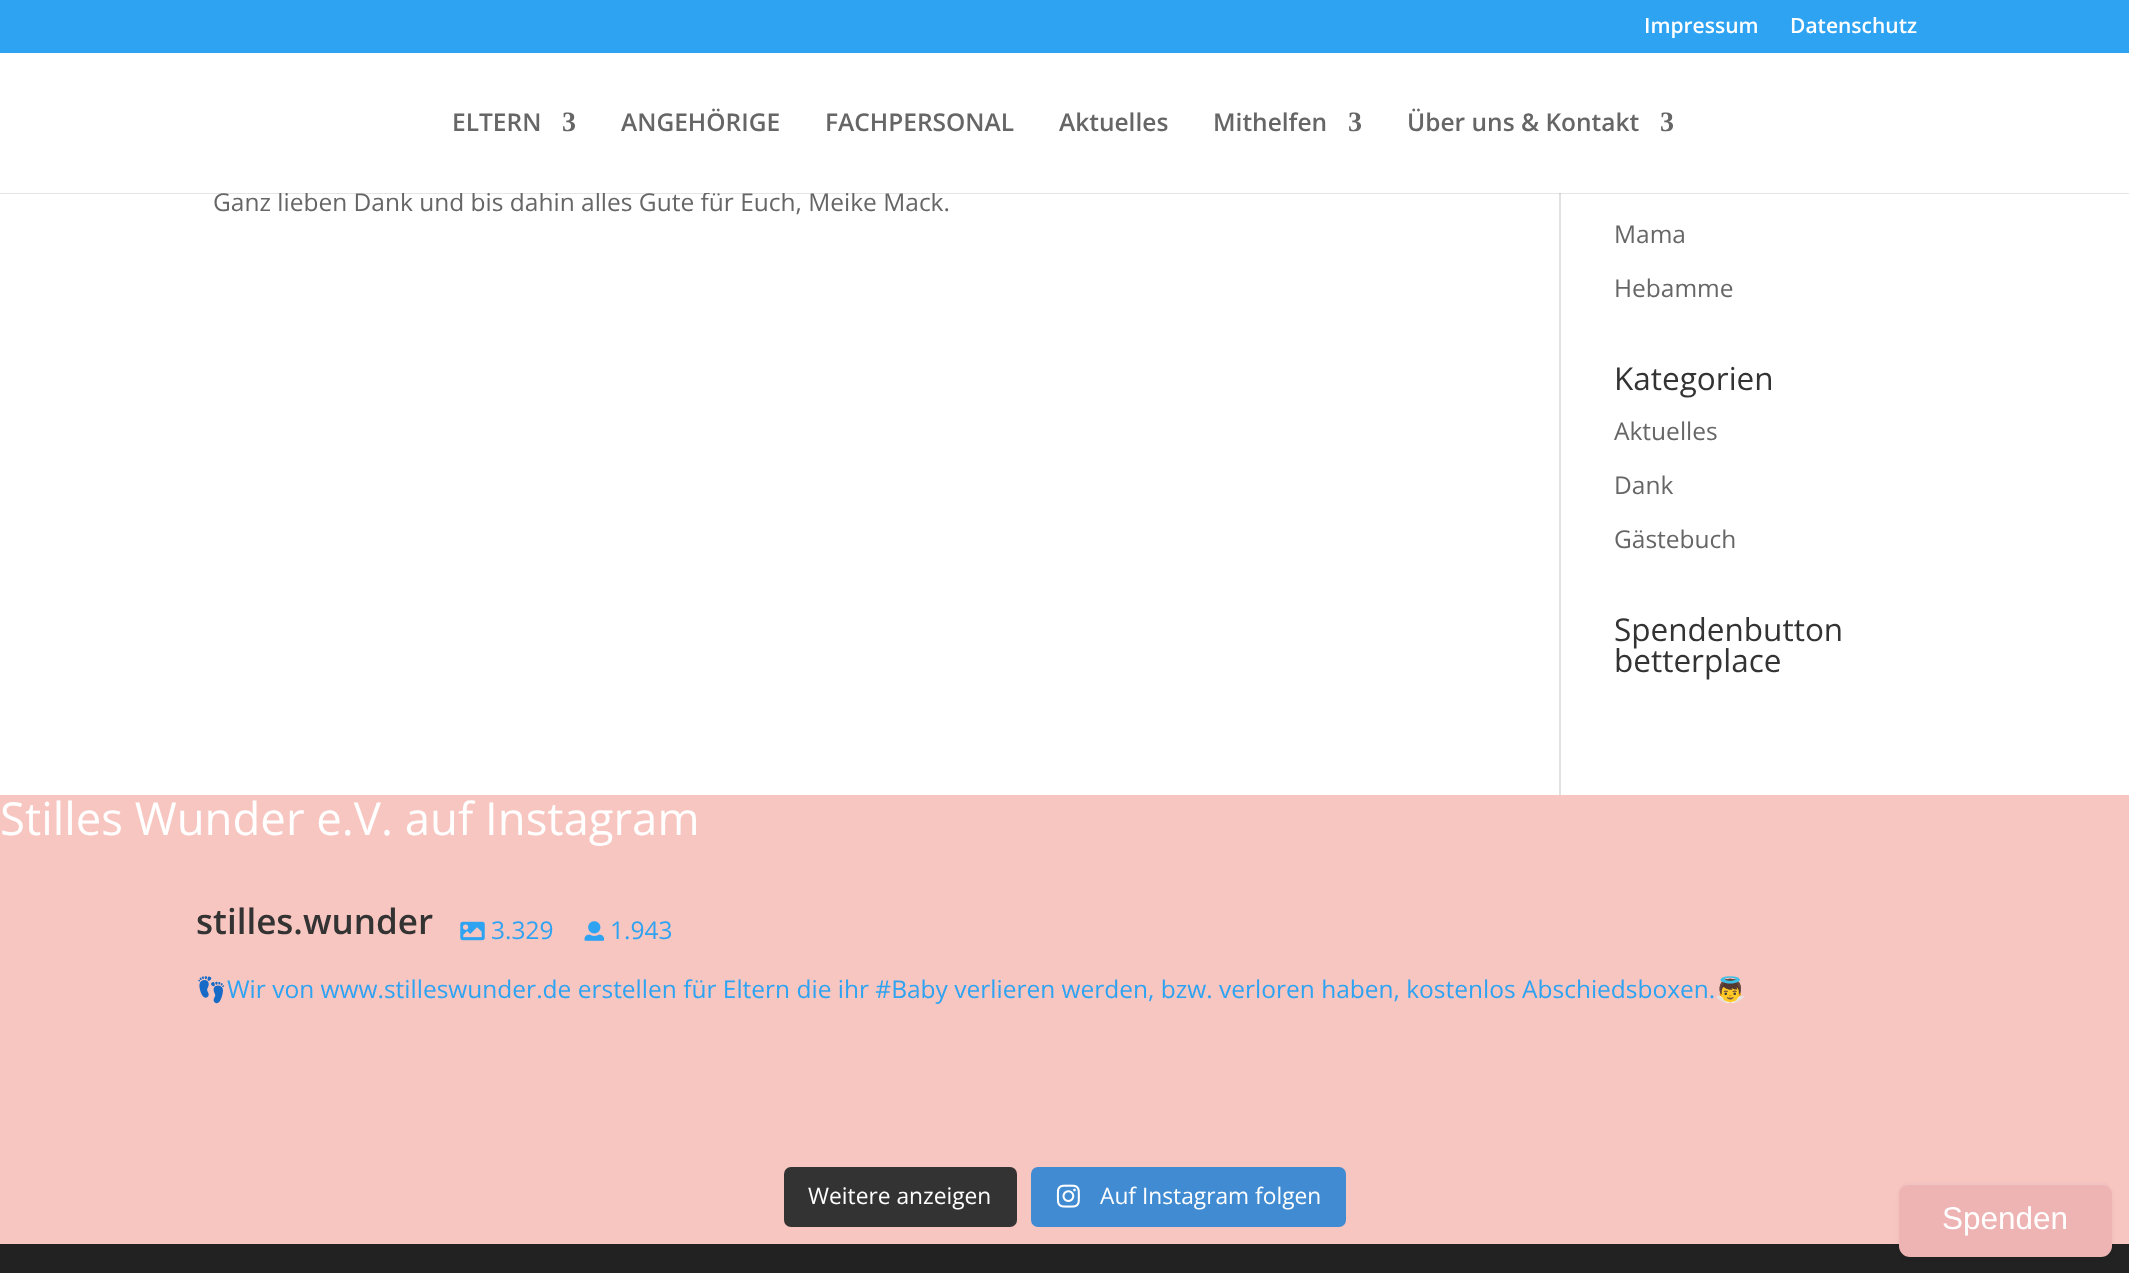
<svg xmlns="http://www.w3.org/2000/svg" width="2129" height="1273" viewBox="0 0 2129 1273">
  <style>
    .t1 { font: 600 21px Open Sans; fill: #fff; }
    .t2 { font: 24.5px Open Sans; fill: #666; }
    .t3 { font: 600 24.5px Open Sans; fill: #666; }
    .t4 { font: bold 28px Liberation Serif; fill: #666; }
    .t5 { font: 31.5px Open Sans; fill: #333; }
    .t6 { font: 45.5px Open Sans; fill: #fff; }
    .t7 { font: 600 35px Open Sans; fill: #333; }
    .t8 { font: 24.5px Open Sans; fill: #2ea3f2; }
    .t9 { font: 24.5px Noto Color Emoji; fill: #2ea3f2; }
    .t10 { font: 22.75px Open Sans; fill: #fff; }
    .t11 { font: 31.5px Liberation Sans; fill: #fff; }
  </style>
  <rect width="100%" height="100%" fill="#f8c6c0"/>
  <rect x="0" y="0" width="2129" height="53" fill="#2ea3f2"/>
  <text x="1644" y="33" class="t1">Impressum</text>
  <text x="1790" y="33" class="t1">Datenschutz</text>
  <rect x="0" y="193" width="2129" height="602" fill="#fff"/>
  <rect x="1559" y="193" width="2" height="602" fill="#e2e2e2"/>
  <path d="M0 192V194H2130V54V192Z" fill="#0000001a"/>
  <text x="213" y="211" class="t2">Ganz lieben Dank und bis dahin alles Gute für Euch, Meike Mack.</text>
  <rect x="0" y="53" width="2129" height="140" fill="#fff"/>
  <text x="452" y="131" class="t3">ELTERN</text>
  <text x="562" y="131" class="t4">3</text>
  <text x="621" y="131" class="t3">ANGEHÖRIGE</text>
  <text x="825" y="131" class="t3">FACHPERSONAL</text>
  <text x="1059" y="131" class="t3">Aktuelles</text>
  <text x="1213" y="131" class="t3">Mithelfen</text>
  <text x="1348" y="131" class="t4">3</text>
  <text x="1407" y="131" class="t3">Über uns &amp; Kontakt</text>
  <text x="1660" y="131" class="t4">3</text>
  <text x="1614" y="243" class="t2">Mama</text>
  <text x="1614" y="297" class="t2">Hebamme</text>
  <text x="1614" y="390" class="t5">Kategorien</text>
  <text x="1614" y="440" class="t2">Aktuelles</text>
  <text x="1614" y="494" class="t2">Dank</text>
  <text x="1614" y="548" class="t2">Gästebuch</text>
  <text x="1614" y="641" class="t5">Spendenbutton</text>
  <text x="1614" y="672" class="t5">betterplace</text>
  <text x="0" y="835" class="t6">Stilles Wunder e.V. auf Instagram</text>
  <text x="196" y="934" class="t7">stilles.wunder</text>
  <image x="460" y="921" width="25" height="20" href="images/1.png"/>
  <text x="491" y="939" class="t8">3.329</text>
  <image x="584" y="921" width="21" height="20" href="images/2.png"/>
  <text x="610" y="939" class="t8">1.943</text>
  <text x="196" y="998" class="t9">👣</text>
  <text x="227" y="998" class="t8">Wir von www.stilleswunder.de erstellen für Eltern die ihr #Baby verlieren werden, bzw. verloren haben, kostenlos Abschiedsboxen.</text>
  <text x="1715" y="998" class="t9">👼</text>
  <rect x="784" y="1167" width="233" height="60" rx="7" fill="#333"/>
  <text x="808" y="1204" class="t10">Weitere anzeigen</text>
  <rect x="1031" y="1167" width="315" height="60" rx="7" fill="#408bd1"/>
  <image x="1056" y="1184" width="24" height="24" href="images/3.png"/>
  <text x="1100" y="1204" class="t10">Auf Instagram folgen</text>
  <rect x="0" y="1244" width="2129" height="29" fill="#222"/>
  <rect x="1899" y="1185" width="213" height="73" rx="11" fill="#0000000d" filter="blur(2px)"/>
  <rect x="1899" y="1183" width="213" height="74" rx="11" fill="#eeb4b4"/>
  <path d="M1909 1185H2102C2108 1185 2112 1189 2112 1195V1194C2112 1188 2107 1183 2101 1183H1910C1904 1183 1899 1188 1899 1194V1195C1899 1189 1903 1185 1909 1185Z" fill="#ffffff33"/>
  <text x="1942" y="1229" class="t11">Spenden</text>
</svg>
